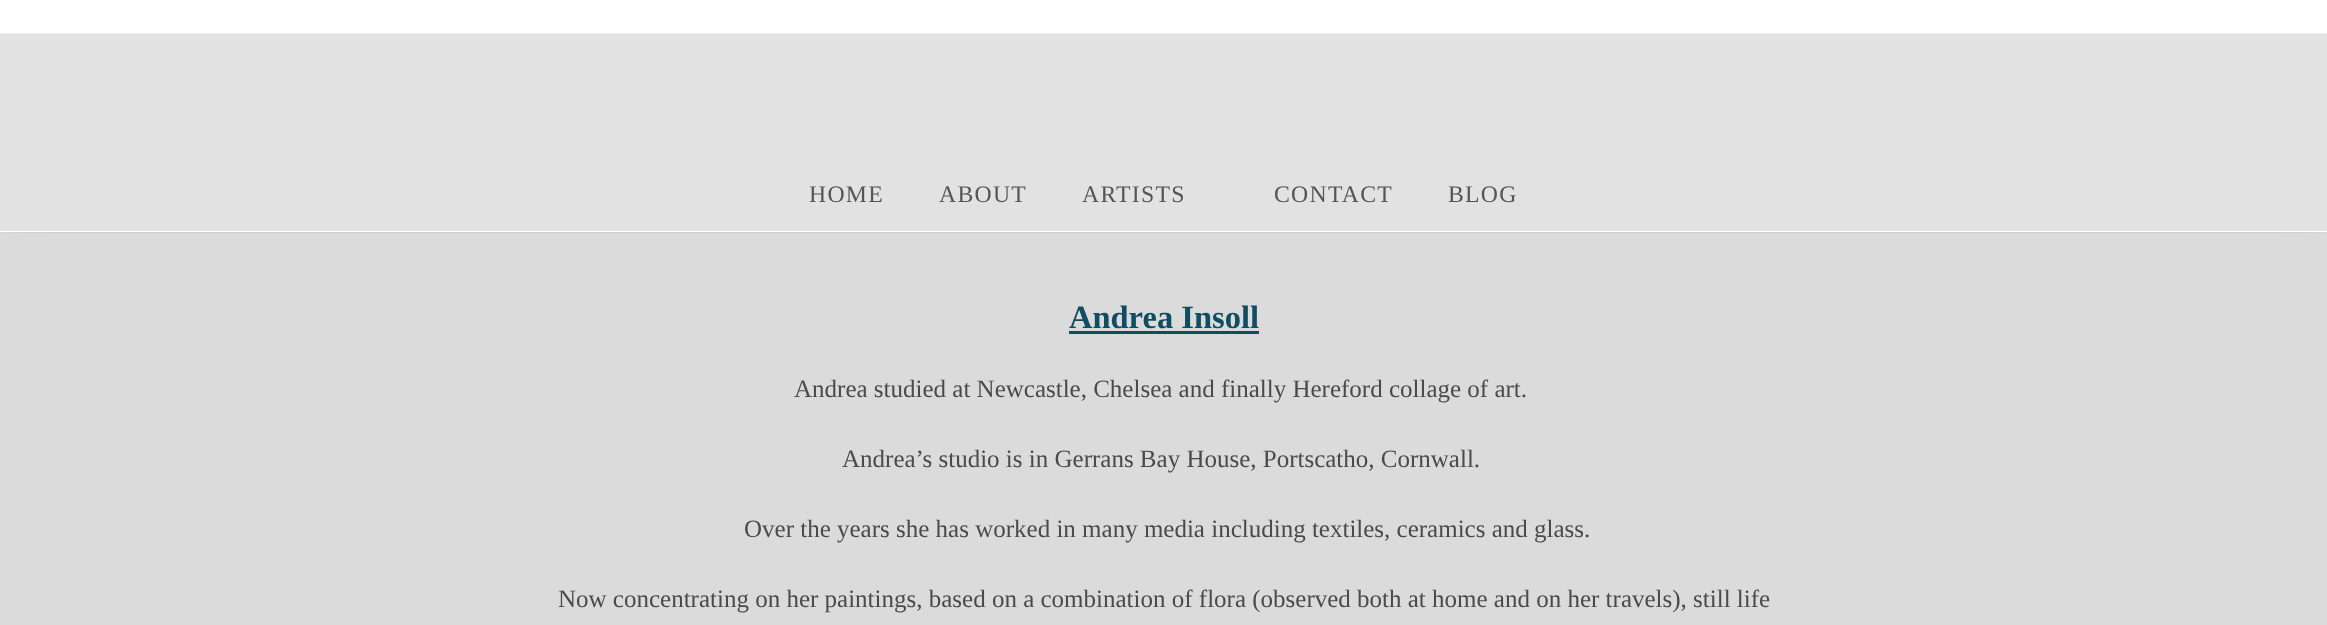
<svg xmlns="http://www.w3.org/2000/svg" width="2327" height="625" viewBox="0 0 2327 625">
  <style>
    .t1 { font: 23.75px Liberation Serif; letter-spacing: 1.25px; fill: #555; }
    .t2 { font: bold 32.5px Liberation Serif; fill: #104d60; }
    .t3 { font: 25px Liberation Serif; fill: #4a4a4a; }
  </style>
  <rect width="100%" height="100%" fill="#dbdbdb"/>
  <rect x="0" y="0" width="2327" height="33" fill="#fff"/>
  <rect x="0" y="33" width="2327" height="1" fill="#f1f1f1"/>
  <rect x="0" y="233" width="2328" height="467" fill="#0000001a" filter="blur(25px)"/>
  <rect x="0" y="231" width="2327" height="1" fill="#fff"/>
  <rect x="0" y="34" width="2327" height="197" fill="#e2e2e2"/>
  <text x="809" y="202" class="t1">HOME</text>
  <text x="939" y="202" class="t1">ABOUT</text>
  <text x="1082" y="202" class="t1">ARTISTS</text>
  <text x="1274" y="202" class="t1">CONTACT</text>
  <text x="1448" y="202" class="t1">BLOG</text>
  <rect x="0" y="233" width="2327" height="392" fill="#dbdbdb"/>
  <text x="1069" y="328" class="t2">Andrea Insoll</text>
  <rect x="1069" y="331" width="190" height="3" fill="#104d60"/>
  <text x="794" y="397" class="t3">Andrea studied at Newcastle, Chelsea and finally Hereford collage of art.</text>
  <text x="842" y="467" class="t3">Andrea’s studio is in Gerrans Bay House, Portscatho, Cornwall.</text>
  <text x="744" y="537" class="t3">Over the years she has worked in many media including textiles, ceramics and glass.</text>
  <text x="558" y="607" class="t3">Now concentrating on her paintings, based on a combination of flora (observed both at home and on her travels), still life</text>
</svg>
